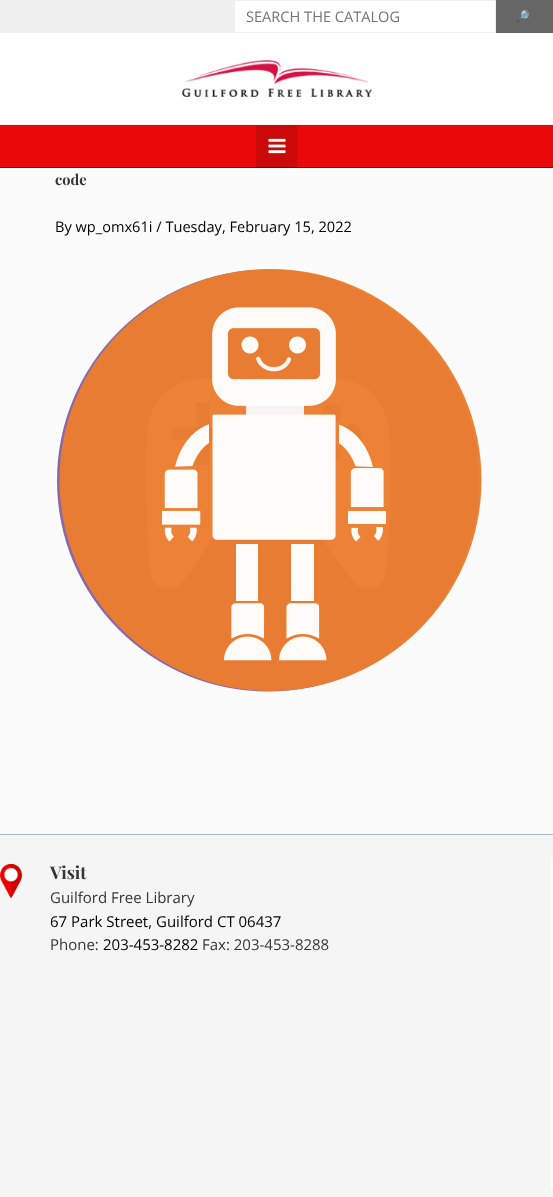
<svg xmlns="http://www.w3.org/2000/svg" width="553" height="1197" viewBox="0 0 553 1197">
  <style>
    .t1 { font: 14.6px Open Sans; fill: #757575; }
    .t2 { font: bold 11px Noto Color Emoji; letter-spacing: 3px; fill: #fff; }
    .t3 { font: bold 14.6px Playfair Display; fill: #353535; }
    .t4 { font: 14.6px Open Sans; fill: #000; }
    .t5 { font: bold 17.5px Playfair Display; fill: #353535; }
    .t6 { font: 15px Open Sans; fill: #353535; }
    .t7 { font: 15px Open Sans; fill: #000; }
  </style>
  <rect width="100%" height="100%" fill="#f0f0f0"/>
  <rect x="234.5" y="0.5" width="261" height="32" rx="1.5" fill="#fff" stroke="#efefef"/>
  <text x="246" y="22" class="t1">SEARCH THE CATALOG</text>
  <rect x="496" y="0" width="57" height="33" fill="#666"/>
  <text x="516" y="20" class="t2">🔎</text>
  <rect x="0" y="33" width="553" height="91" fill="#fff"/>
  <image x="182" y="60" width="190" height="37" href="images/1.png"/>
  <rect x="0" y="125" width="553" height="42" fill="#ea0808"/>
  <rect x="0" y="167" width="553" height="1" fill="#222"/>
  <rect x="256" y="125" width="41" height="42" fill="#cb0909"/>
  <image x="268" y="138" width="18" height="16" href="images/2.png"/>
  <rect x="0" y="168" width="553" height="666" fill="#fbfbfb"/>
  <text x="55" y="185" class="t3">code</text>
  <text x="55" y="232" class="t4">By wp_omx61i / Tuesday, February 15, 2022</text>
  <image x="57" y="269" width="425" height="423" href="images/3.png"/>
  <rect x="0" y="835" width="553" height="362" fill="#f5f5f5"/>
  <rect x="0" y="834" width="553" height="1" fill="#abb8c3"/>
  <image x="0" y="864" width="22" height="34" href="images/4.png"/>
  <rect x="551" y="858" width="2" height="331" fill="#fff"/>
  <text x="50" y="879" class="t5">Visit</text>
  <text x="50" y="903" class="t6">Guilford Free Library</text>
  <text x="50" y="927" class="t7">67 Park Street, Guilford CT 06437</text>
  <text x="50" y="950" class="t6">Phone:</text>
  <text x="103" y="950" class="t7">203-453-8282</text>
  <text x="202" y="950" class="t6">Fax: 203-453-8288</text>
</svg>
